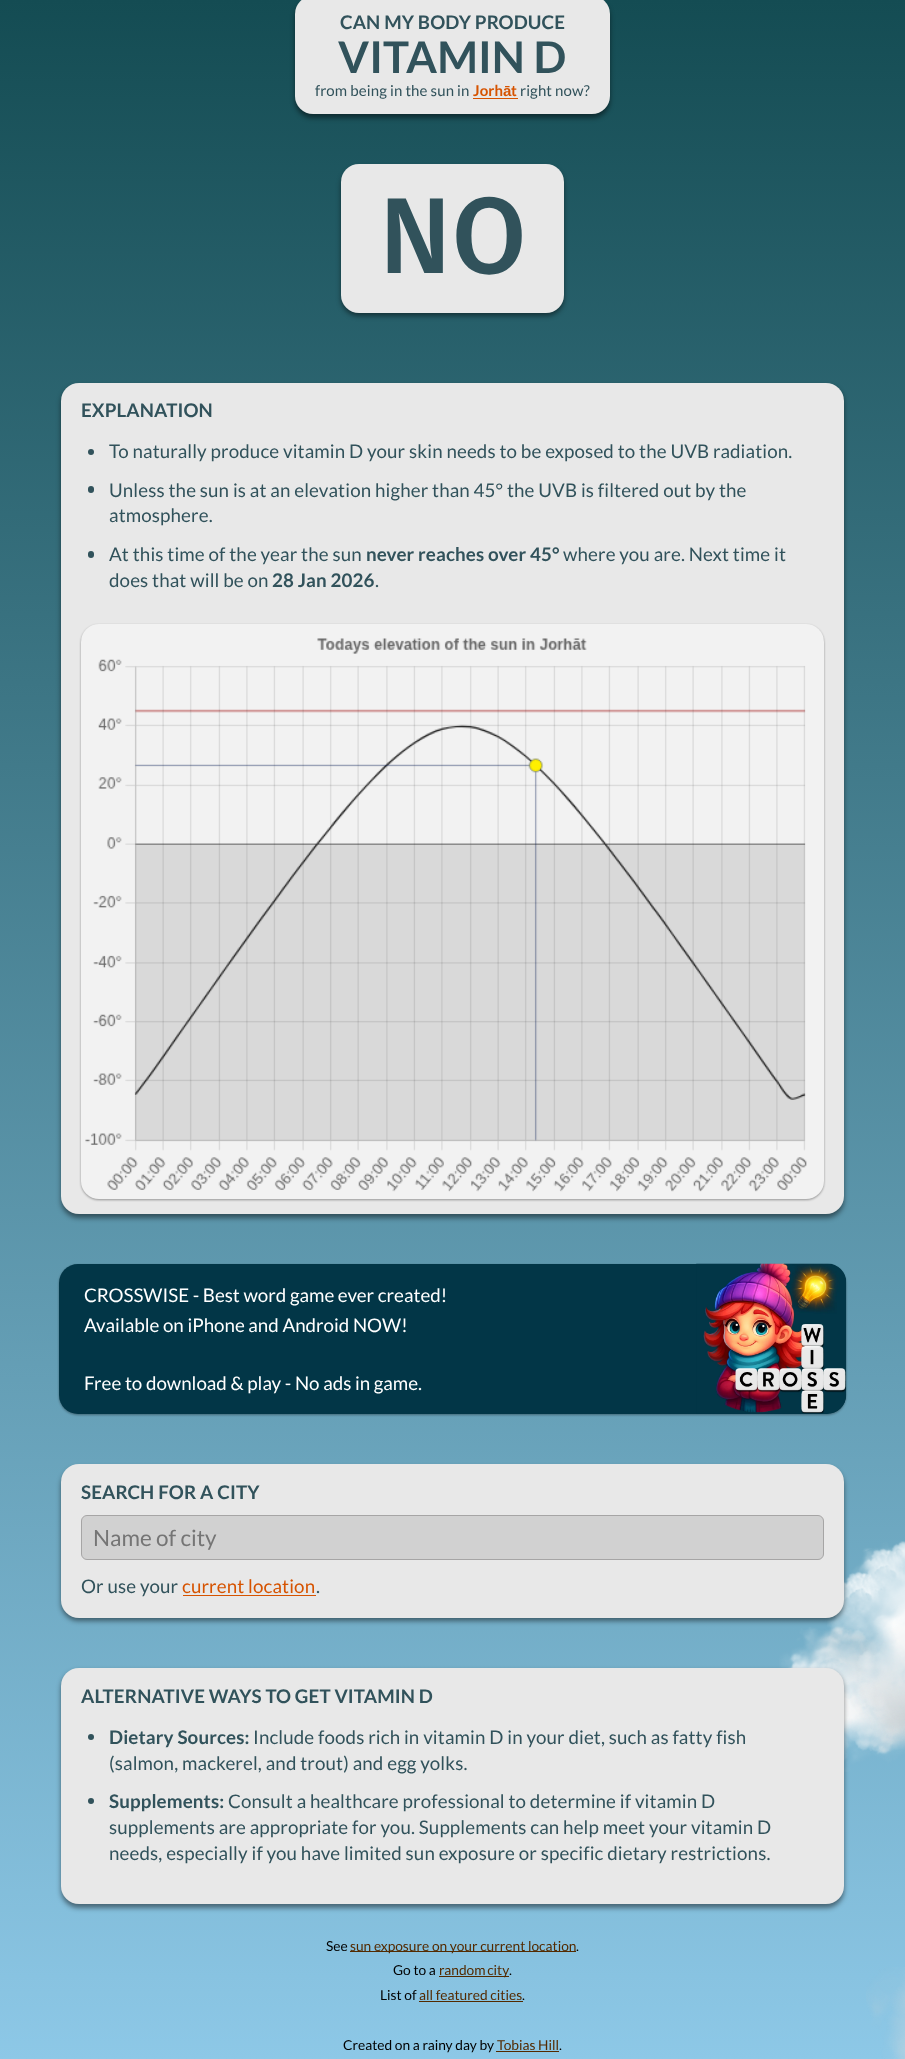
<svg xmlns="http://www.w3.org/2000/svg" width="905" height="2059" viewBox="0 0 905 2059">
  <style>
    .t1 { font: bold 18.75px Lato; letter-spacing: 0.12px; fill: #31525b; }
    .t2 { font: bold 43.75px Lato; letter-spacing: 0.12px; fill: #31525b; }
    .t3 { font: 15px Lato; letter-spacing: 0.12px; fill: #31525b; }
    .t4 { font: bold 15px Lato; letter-spacing: 0.12px; fill: #d65300; }
    .t5 { font: bold 15px Liberation Sans; letter-spacing: 0.12px; fill: #d65300; }
    .t6 { font: 500 108px Fira Sans; letter-spacing: 0.12px; fill: #31525b; }
    .t7 { font: 18.75px Lato; letter-spacing: 0.12px; fill: #31525b; }
    .t8 { font: 18.75px Lato; fill: #fff; }
    .t9 { font: 22.5px Lato; fill: #757575; }
    .t10 { font: 18.75px Lato; letter-spacing: 0.12px; fill: #d65300; }
    .t11 { font: 13.75px Lato; fill: #000; }
    .t12 { font: 13.75px Lato; fill: #532a00; }
  </style>
  <defs>
    <linearGradient id="g1" gradientUnits="userSpaceOnUse" x1="452" y1="0" x2="453" y2="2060"><stop offset="0" stop-color="#144c53"/><stop offset="1" stop-color="#8dc8e7"/></linearGradient>
  </defs>
  <rect width="100%" height="100%" fill="#fff"/>
  <rect x="0" y="0" width="905" height="2059" fill="url(#g1)"/>
  <image x="779" y="1625" width="126" height="147" href="images/2.png"/>
  <image x="827" y="1541" width="78" height="200" href="images/1.png"/>
  <image x="866" y="1967" width="39" height="92" href="images/3.png"/>
  <rect x="295" y="0" width="315" height="118" rx="18" fill="#00000075" filter="blur(2.5px)"/>
  <rect x="295" y="-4" width="315" height="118" rx="18" fill="#e8e8e8"/>
  <text x="340" y="29" class="t1">CAN MY BODY PRODUCE</text>
  <text x="338" y="73" class="t2">VITAMIN D</text>
  <text x="315" y="96" class="t3">from being in the sun in</text>
  <text x="473" y="96" class="t4">Jorh</text>
  <text x="503" y="96" class="t5">ā</text>
  <rect x="473" y="98" width="45" height="1" fill="#d65300"/>
  <text x="511" y="96" class="t4">t</text>
  <text x="520" y="96" class="t3">right now?</text>
  <rect x="341" y="168" width="223" height="148" rx="18" fill="#00000075" filter="blur(2.5px)"/>
  <rect x="341" y="164" width="223" height="149" rx="18" fill="#e8e8e8"/>
  <text x="379" y="273" class="t6">NO</text>
  <rect x="61" y="386" width="783" height="832" rx="18" fill="#00000075" filter="blur(2.5px)"/>
  <rect x="61" y="383" width="783" height="831" rx="18" fill="#e8e8e8"/>
  <text x="81" y="417" class="t1">EXPLANATION</text>
  <circle cx="91" cy="452" r="3" fill="#31525b"/>
  <text x="109" y="458" class="t7">To naturally produce vitamin D your skin needs to be exposed to the UVB radiation.</text>
  <rect x="88" y="486" width="6" height="7" rx="3" fill="#31525b"/>
  <text x="109" y="497" class="t7">Unless the sun is at an elevation higher than 45° the UVB is filtered out by the</text>
  <text x="109" y="522" class="t7">atmosphere.</text>
  <rect x="88" y="551" width="6" height="7" rx="3" fill="#31525b"/>
  <text x="109" y="561" class="t7">At this time of the year the sun</text>
  <text x="366" y="561" class="t1">never reaches over 45°</text>
  <text x="563" y="561" class="t7">where you are. Next time it</text>
  <text x="109" y="587" class="t7">does that will be on</text>
  <text x="272" y="587" class="t1">28 Jan 2026</text>
  <text x="375" y="587" class="t7">.</text>
  <rect x="81" y="625" width="743" height="575" rx="18" fill="#0000005c" filter="blur(1px)"/>
  <rect x="81" y="624" width="743" height="575" rx="18" fill="#f2f2f2"/>
  <image x="85" y="638" width="722" height="554" href="images/4.png"/>
  <rect x="59" y="1265" width="787" height="150" rx="19" fill="#0000005c" filter="blur(1px)"/>
  <rect x="59" y="1264" width="787" height="150" rx="19" fill="#023647"/>
  <text x="84" y="1302" class="t8">CROSSWISE - Best word game ever created!</text>
  <text x="84" y="1332" class="t8">Available on iPhone and Android NOW!</text>
  <text x="84" y="1390" class="t8">Free to download &amp; play - No ads in game.</text>
  <image x="696" y="1263" width="151" height="151" href="images/5.png"/>
  <rect x="61" y="1468" width="783" height="153" rx="18" fill="#00000075" filter="blur(2.5px)"/>
  <rect x="61" y="1464" width="783" height="154" rx="18" fill="#e8e8e8"/>
  <text x="81" y="1499" class="t1">SEARCH FOR A CITY</text>
  <rect x="81.5" y="1515.5" width="742" height="44" rx="5.5" fill="#d1d1d1" stroke="#a6a5a5"/>
  <text x="93" y="1546" class="t9">Name of city</text>
  <text x="81" y="1593" class="t7">Or use your</text>
  <text x="182" y="1593" class="t10">current location</text>
  <rect x="183" y="1595" width="133" height="1" fill="#d65300"/>
  <text x="316" y="1593" class="t7">.</text>
  <rect x="61" y="1671" width="783" height="237" rx="18" fill="#00000075" filter="blur(2.5px)"/>
  <rect x="61" y="1668" width="783" height="236" rx="18" fill="#e8e8e8"/>
  <text x="81" y="1703" class="t1">ALTERNATIVE WAYS TO GET VITAMIN D</text>
  <circle cx="91" cy="1737" r="3" fill="#31525b"/>
  <text x="109" y="1744" class="t1">Dietary Sources:</text>
  <text x="253" y="1744" class="t7">Include foods rich in vitamin D in your diet, such as fatty fish</text>
  <text x="109" y="1770" class="t7">(salmon, mackerel, and trout) and egg yolks.</text>
  <circle cx="91" cy="1801" r="3" fill="#31525b"/>
  <text x="109" y="1808" class="t1">Supplements:</text>
  <text x="228" y="1808" class="t7">Consult a healthcare professional to determine if vitamin D</text>
  <text x="109" y="1834" class="t7">supplements are appropriate for you. Supplements can help meet your vitamin D</text>
  <text x="109" y="1860" class="t7">needs, especially if you have limited sun exposure or specific dietary restrictions.</text>
  <text x="326" y="1951" class="t11">See</text>
  <rect x="350" y="1951" width="226" height="1" fill="#532a00"/>
  <text x="350" y="1951" class="t12">sun exposure on your current location</text>
  <text x="576" y="1951" class="t11">.</text>
  <text x="393" y="1975" class="t11">Go to a</text>
  <rect x="439" y="1976" width="70" height="1" fill="#532a00"/>
  <text x="439" y="1975" word-spacing="-1" class="t12">random city</text>
  <text x="509" y="1975" class="t11">.</text>
  <text x="380" y="2000" class="t11">List of</text>
  <text x="419" y="2000" class="t12">all featured cities</text>
  <rect x="419" y="2001" width="104" height="1" fill="#532a00"/>
  <text x="522" y="2000" class="t11">.</text>
  <text x="343" y="2050" class="t11">Created on a rainy day by</text>
  <text x="497" y="2050" class="t12">Tobias Hill</text>
  <rect x="496" y="2051" width="63" height="1" fill="#532a00"/>
  <text x="559" y="2050" class="t11">.</text>
</svg>
